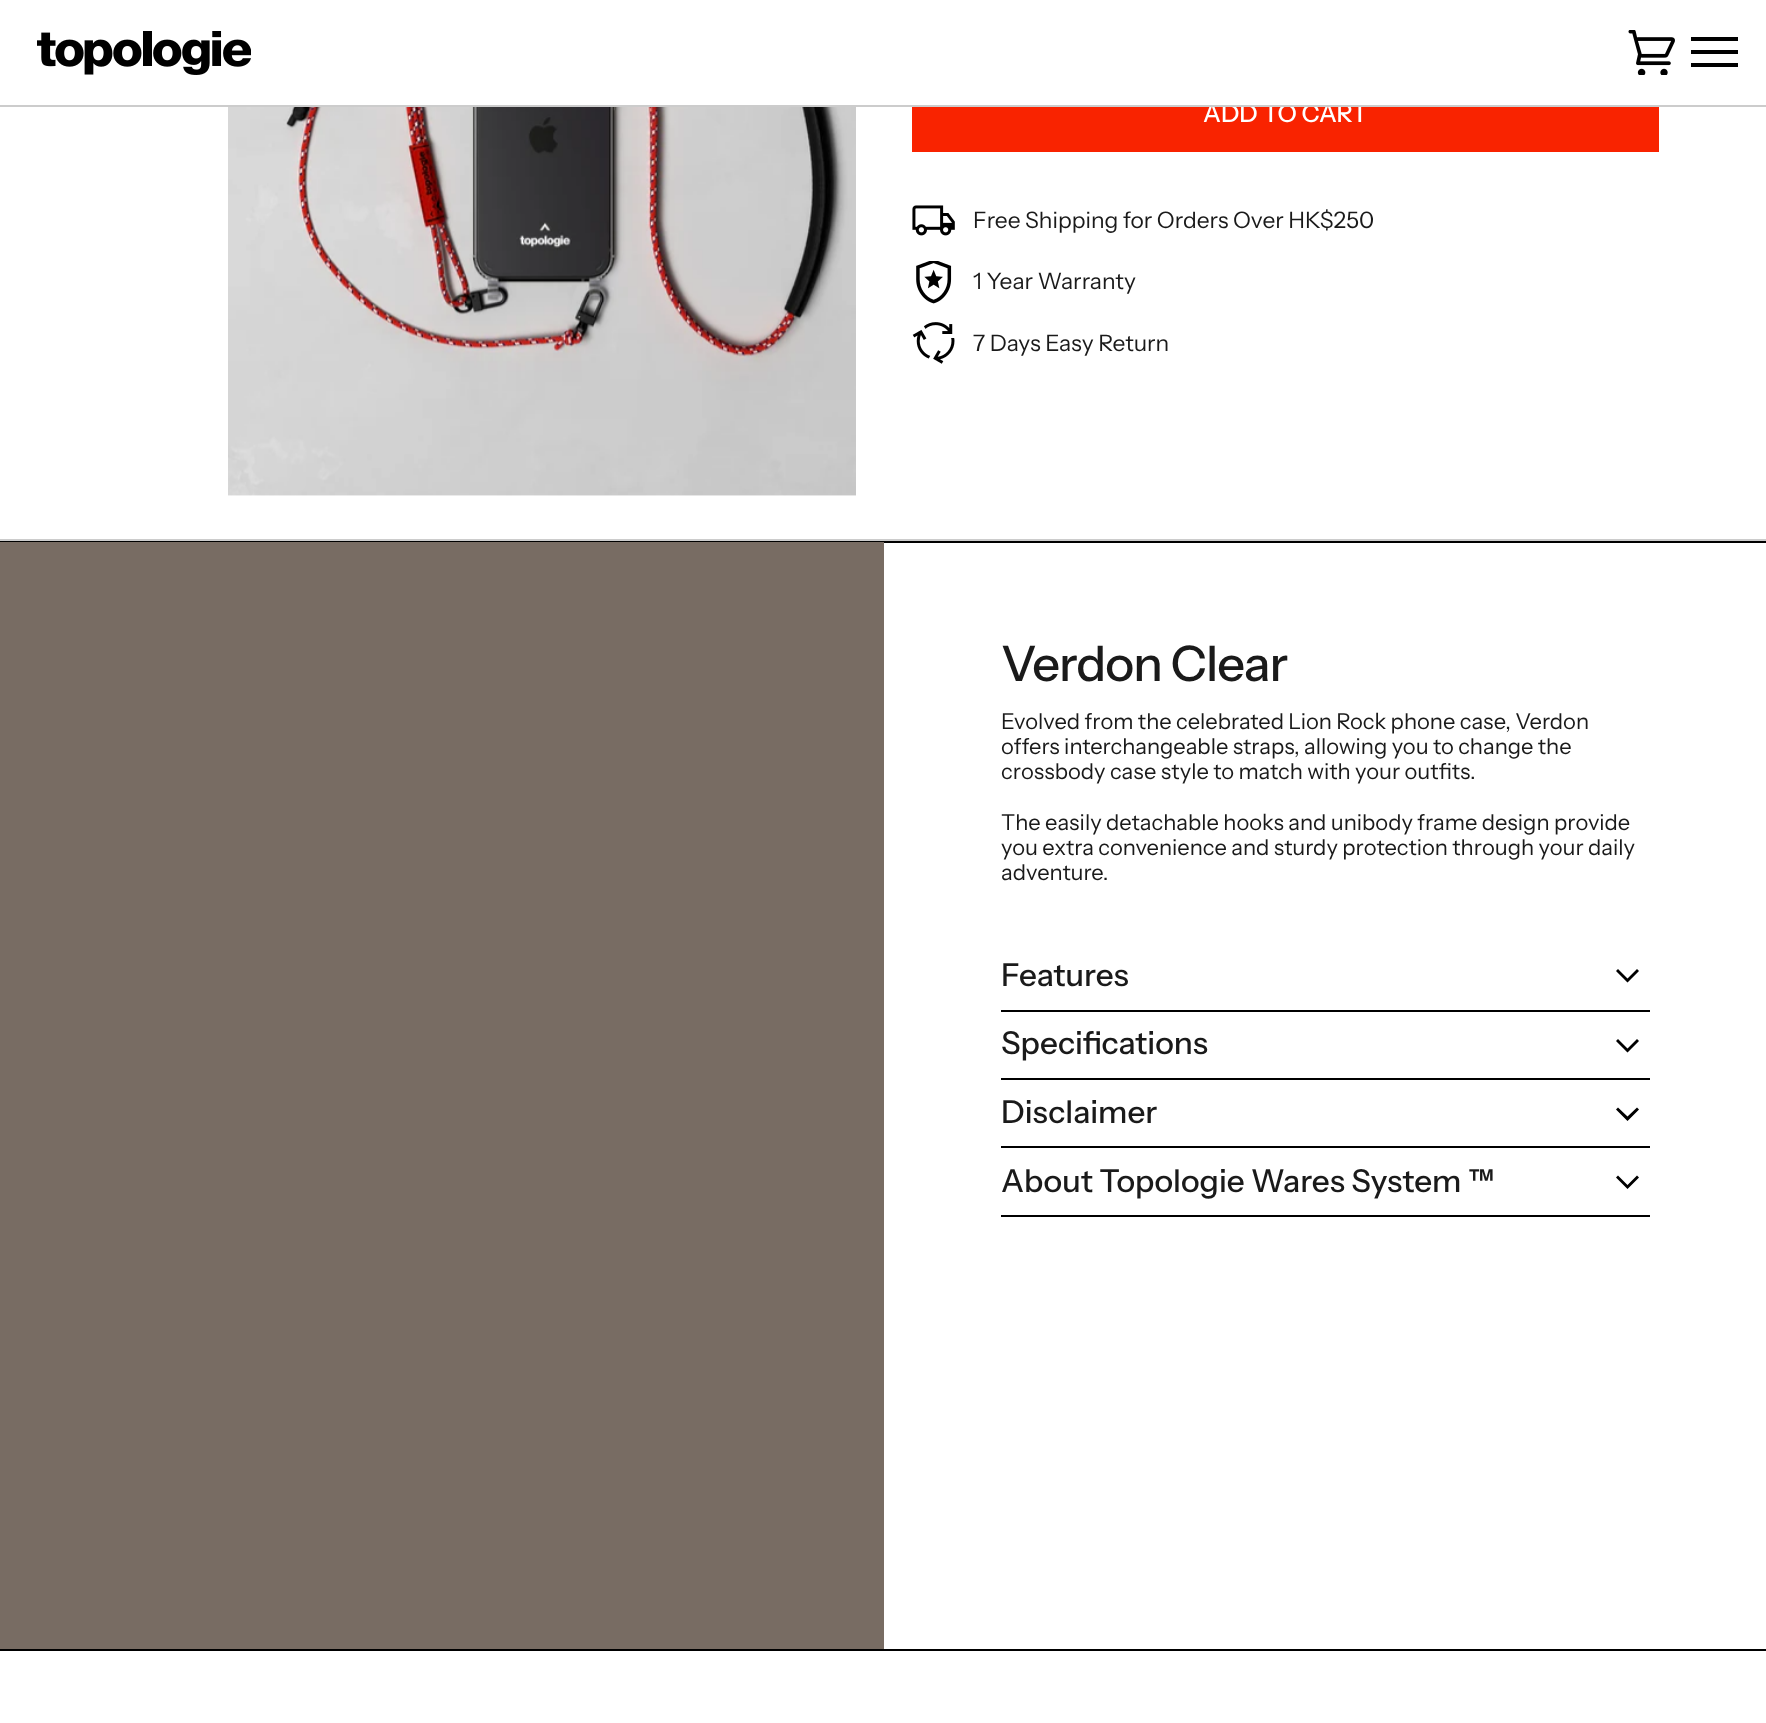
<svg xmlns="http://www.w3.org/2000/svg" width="1766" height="1723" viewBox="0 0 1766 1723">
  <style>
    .t1 { font: 500 24.5px Instrument Sans; fill: #fff; }
    .t2 { font: 22.75px Instrument Sans; fill: #1a1a1a; }
    .t3 { font: 500 49px Instrument Sans; letter-spacing: -1px; fill: #1a1a1a; }
    .t4 { font: 21.95px Instrument Sans; fill: #1a1a1a; }
    .t5 { font: 500 31.5px Instrument Sans; fill: #1a1a1a; }
  </style>
  <rect width="100%" height="100%" fill="#fff"/>
  <rect x="912" y="107" width="747" height="45" fill="#f92300"/>
  <text x="1203" y="122" class="t1">ADD TO CART</text>
  <rect x="0" y="105" width="1766" height="2" fill="#ccc"/>
  <image x="37" y="31" width="214" height="44" href="images/1.png"/>
  <image x="1628" y="30" width="47" height="45" href="images/2.png"/>
  <path d="M1691 37H1738V41H1691ZM1691 50H1738V54H1691ZM1691 63H1738V67H1691Z" fill="#000"/>
  <image x="228" y="107" width="628" height="389" href="images/3.png"/>
  <image x="912" y="205" width="43" height="31" href="images/4.png"/>
  <text x="973" y="228" class="t2">Free Shipping for Orders Over HK$250</text>
  <image x="916" y="261" width="36" height="43" href="images/5.png"/>
  <text x="973" y="289" class="t2">1 Year Warranty</text>
  <image x="912" y="322" width="43" height="42" href="images/6.png"/>
  <text x="973" y="351" class="t2">7 Days Easy Return</text>
  <rect x="0" y="539" width="1766" height="2" fill="#ccc"/>
  <rect x="0" y="541" width="1766" height="2" fill="#000"/>
  <rect x="0" y="1649" width="1766" height="2" fill="#000"/>
  <rect x="0" y="542" width="884" height="1107" fill="#786c63"/>
  <text x="1001" y="681" class="t3">Verdon Clear</text>
  <text x="1001" y="729" class="t4">Evolved from the celebrated Lion Rock phone case, Verdon</text>
  <text x="1001" y="754" class="t4">offers interchangeable straps, allowing you to change the</text>
  <text x="1001" y="779" class="t4">crossbody case style to match with your outfits.</text>
  <text x="1001" y="830" class="t4">The easily detachable hooks and unibody frame design provide</text>
  <text x="1001" y="855" class="t4">you extra convenience and sturdy protection through your daily</text>
  <text x="1001" y="880" class="t4">adventure.</text>
  <rect x="1001" y="1010" width="649" height="2" fill="#000"/>
  <text x="1001" y="986" class="t5">Features</text>
  <path d="M1627.5 982.5L1616 971L1618 969L1627.5 978.5L1637 969L1639 971Z" fill="#000"/>
  <rect x="1001" y="1078" width="649" height="2" fill="#000"/>
  <text x="1001" y="1054" class="t5">Specifications</text>
  <path d="M1627.5 1052.5L1616 1041L1618 1039L1627.5 1048.5L1637 1039L1639 1041Z" fill="#000"/>
  <rect x="1001" y="1146" width="649" height="2" fill="#000"/>
  <text x="1001" y="1123" class="t5">Disclaimer</text>
  <path d="M1627.5 1121L1616 1109.5L1618 1107.5L1627.5 1116.5L1637 1107.5L1639 1109.5Z" fill="#000"/>
  <rect x="1001" y="1215" width="649" height="2" fill="#000"/>
  <text x="1001" y="1192" class="t5">About Topologie Wares System ™</text>
  <path d="M1627.5 1189L1616 1177.5L1618 1175.5L1627.5 1185L1637 1175.5L1639 1177.5Z" fill="#000"/>
</svg>
